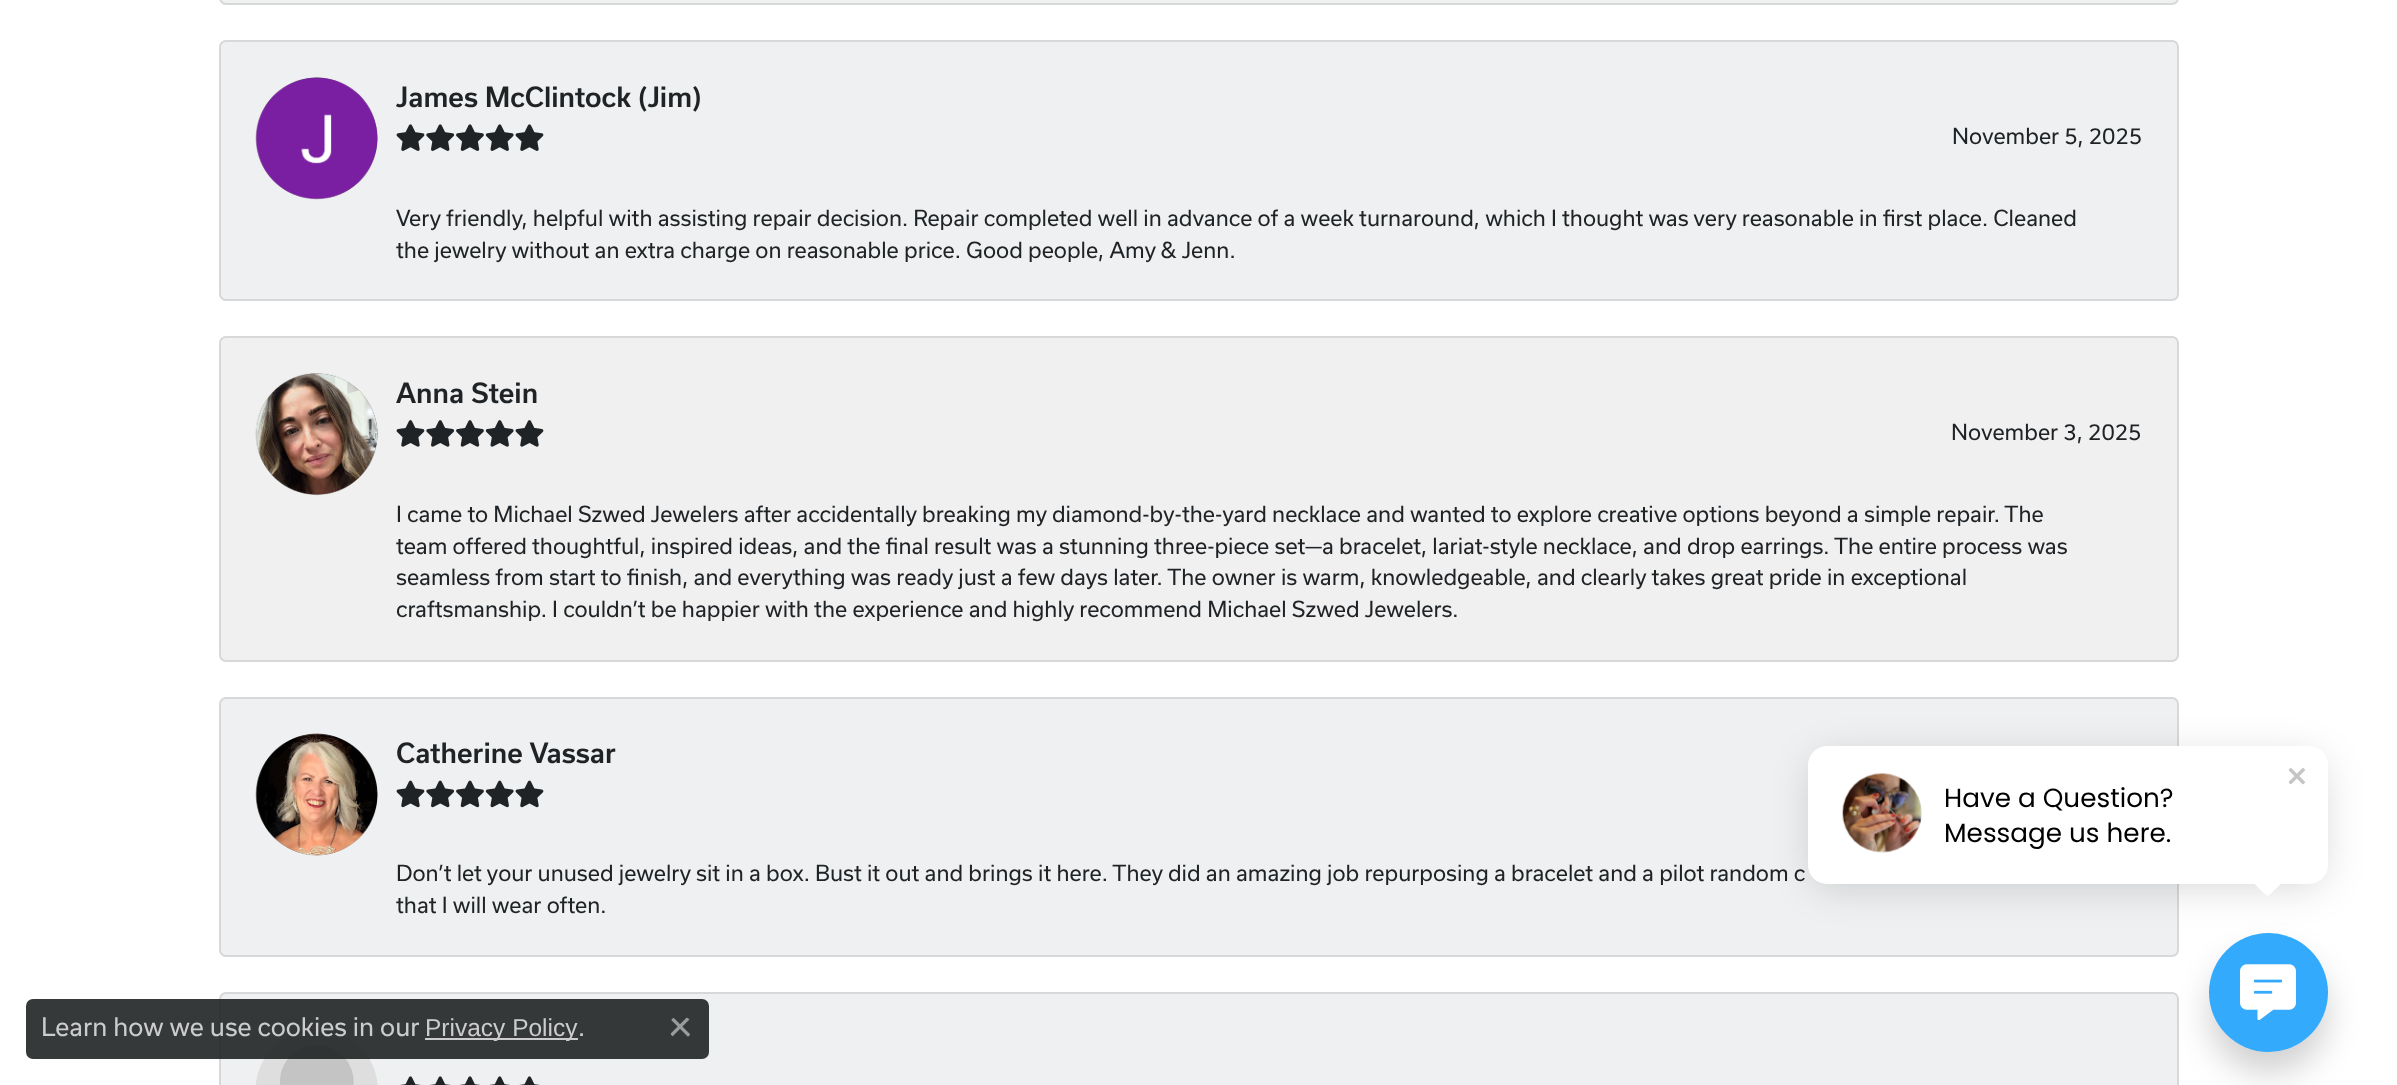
<svg xmlns="http://www.w3.org/2000/svg" width="2397" height="1085" viewBox="0 0 2397 1085">
  <style>
    .t1 { font: 500 26.6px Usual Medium; fill: #1f2325; }
    .t2 { font: 21.28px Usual; fill: #1f2325; }
    .t3 { font: 26.25px Poppins; fill: #000; }
    .t4 { font: 24.5px Usual; fill: #ccc; }
    .t5 { font: 24.5px Liberation Sans; fill: #ccc; }
  </style>
  <defs>
    <clipPath id="clip1"><rect x="2249" y="879" width="38" height="17"/></clipPath>
  </defs>
  <rect width="100%" height="100%" fill="#fff"/>
  <rect x="220" y="-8" width="1958" height="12" rx="6" fill="#eff0f0" stroke="#d6d8da" stroke-width="2"/>
  <rect x="220" y="41" width="1958" height="259" rx="6" fill="#eff0f1" stroke="#d6d8da" stroke-width="2"/>
  <image x="255" y="77" width="123" height="123" href="images/1.png"/>
  <text x="396" y="107" class="t1">James McClintock (Jim)</text>
  <image x="396" y="124" width="29" height="27" href="images/2.png"/>
  <image x="426" y="124" width="29" height="27" href="images/3.png"/>
  <image x="456" y="124" width="28" height="27" href="images/4.png"/>
  <image x="485" y="124" width="29" height="27" href="images/5.png"/>
  <image x="515" y="124" width="29" height="27" href="images/2.png"/>
  <text x="1952" y="144" class="t2">November 5, 2025</text>
  <text x="396" y="226" class="t2">Very friendly, helpful with assisting repair decision. Repair completed well in advance of a week turnaround, which I thought was very reasonable in first place. Cleaned</text>
  <text x="396" y="258" class="t2">the jewelry without an extra charge on reasonable price. Good people, Amy &amp; Jenn.</text>
  <rect x="220" y="337" width="1958" height="324" rx="6" fill="#f0f0f1" stroke="#d6d8da" stroke-width="2"/>
  <image x="255" y="373" width="123" height="123" href="images/6.png"/>
  <text x="396" y="403" class="t1">Anna Stein</text>
  <image x="396" y="420" width="29" height="27" href="images/7.png"/>
  <image x="426" y="420" width="29" height="27" href="images/8.png"/>
  <image x="456" y="420" width="28" height="27" href="images/9.png"/>
  <image x="485" y="420" width="29" height="27" href="images/10.png"/>
  <image x="515" y="420" width="29" height="27" href="images/7.png"/>
  <text x="1951" y="440" class="t2">November 3, 2025</text>
  <text x="396" y="522" class="t2">I came to Michael Szwed Jewelers after accidentally breaking my diamond-by-the-yard necklace and wanted to explore creative options beyond a simple repair. The</text>
  <text x="396" y="554" class="t2">team offered thoughtful, inspired ideas, and the final result was a stunning three-piece set—a bracelet, lariat-style necklace, and drop earrings. The entire process was</text>
  <text x="396" y="585" class="t2">seamless from start to finish, and everything was ready just a few days later. The owner is warm, knowledgeable, and clearly takes great pride in exceptional</text>
  <text x="396" y="617" class="t2">craftsmanship. I couldn’t be happier with the experience and highly recommend Michael Szwed Jewelers.</text>
  <rect x="220" y="698" width="1958" height="258" rx="6" fill="#eff0f1" stroke="#d6d8da" stroke-width="2"/>
  <image x="255" y="733" width="123" height="123" href="images/11.png"/>
  <text x="396" y="763" class="t1">Catherine Vassar</text>
  <image x="396" y="780" width="29" height="28" href="images/12.png"/>
  <image x="426" y="780" width="29" height="28" href="images/13.png"/>
  <image x="456" y="780" width="28" height="28" href="images/14.png"/>
  <image x="485" y="780" width="29" height="28" href="images/15.png"/>
  <image x="515" y="780" width="29" height="28" href="images/12.png"/>
  <text x="396" y="881" class="t2">Don’t let your unused jewelry sit in a box. Bust it out and brings it here. They did an amazing job repurposing a bracelet and a pilot random c</text>
  <text x="396" y="913" class="t2">that I will wear often.</text>
  <rect x="220" y="993" width="1958" height="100" rx="6" fill="#eff0f1" stroke="#d6d8da" stroke-width="2"/>
  <image x="256" y="1029" width="122" height="56" href="images/16.png"/>
  <image x="400" y="1076" width="21" height="9" href="images/17.png"/>
  <image x="430" y="1076" width="21" height="9" href="images/18.png"/>
  <image x="459" y="1076" width="22" height="9" href="images/19.png"/>
  <image x="489" y="1076" width="21" height="9" href="images/20.png"/>
  <image x="519" y="1076" width="21" height="9" href="images/17.png"/>
  <rect x="2209" y="954" width="119" height="119" rx="59.5" fill="#0000002e" filter="blur(16.5px)"/>
  <circle cx="2268.5" cy="992.5" r="59.5" fill="#33aafc"/>
  <rect x="1815" y="760" width="506" height="124" rx="12" fill="#0000002e" filter="blur(21px)"/>
  <rect x="1808" y="746" width="520" height="138" rx="19" fill="#fff"/>
  <image x="1842" y="773" width="80" height="80" href="images/21.png"/>
  <text x="1944" y="807" class="t3">Have a Question?</text>
  <text x="1944" y="842" class="t3">Message us here.</text>
  <image x="2288" y="768" width="17" height="17" href="images/22.png"/>
  <g clip-path="url(#clip1)">
    <path d="M2249 878.5L2262.5 892C2267.5 897 2267.5 897 2272.5 892L2286.5 878.5Z" fill="#fff" fill-rule="evenodd"/>
  </g>
  <rect x="26" y="999" width="683" height="60" rx="7" fill="#1f2325e6"/>
  <text x="41" y="1036" class="t4">Learn how we use cookies in our</text>
  <rect x="425" y="1038" width="153" height="2" fill="#ccc"/>
  <text x="425" y="1036" class="t5">Privacy Policy</text>
  <text x="578" y="1036" class="t4">.</text>
  <image x="670" y="1017" width="20" height="20" href="images/23.png"/>
  <image x="2240" y="964" width="56" height="56" href="images/24.png"/>
</svg>
